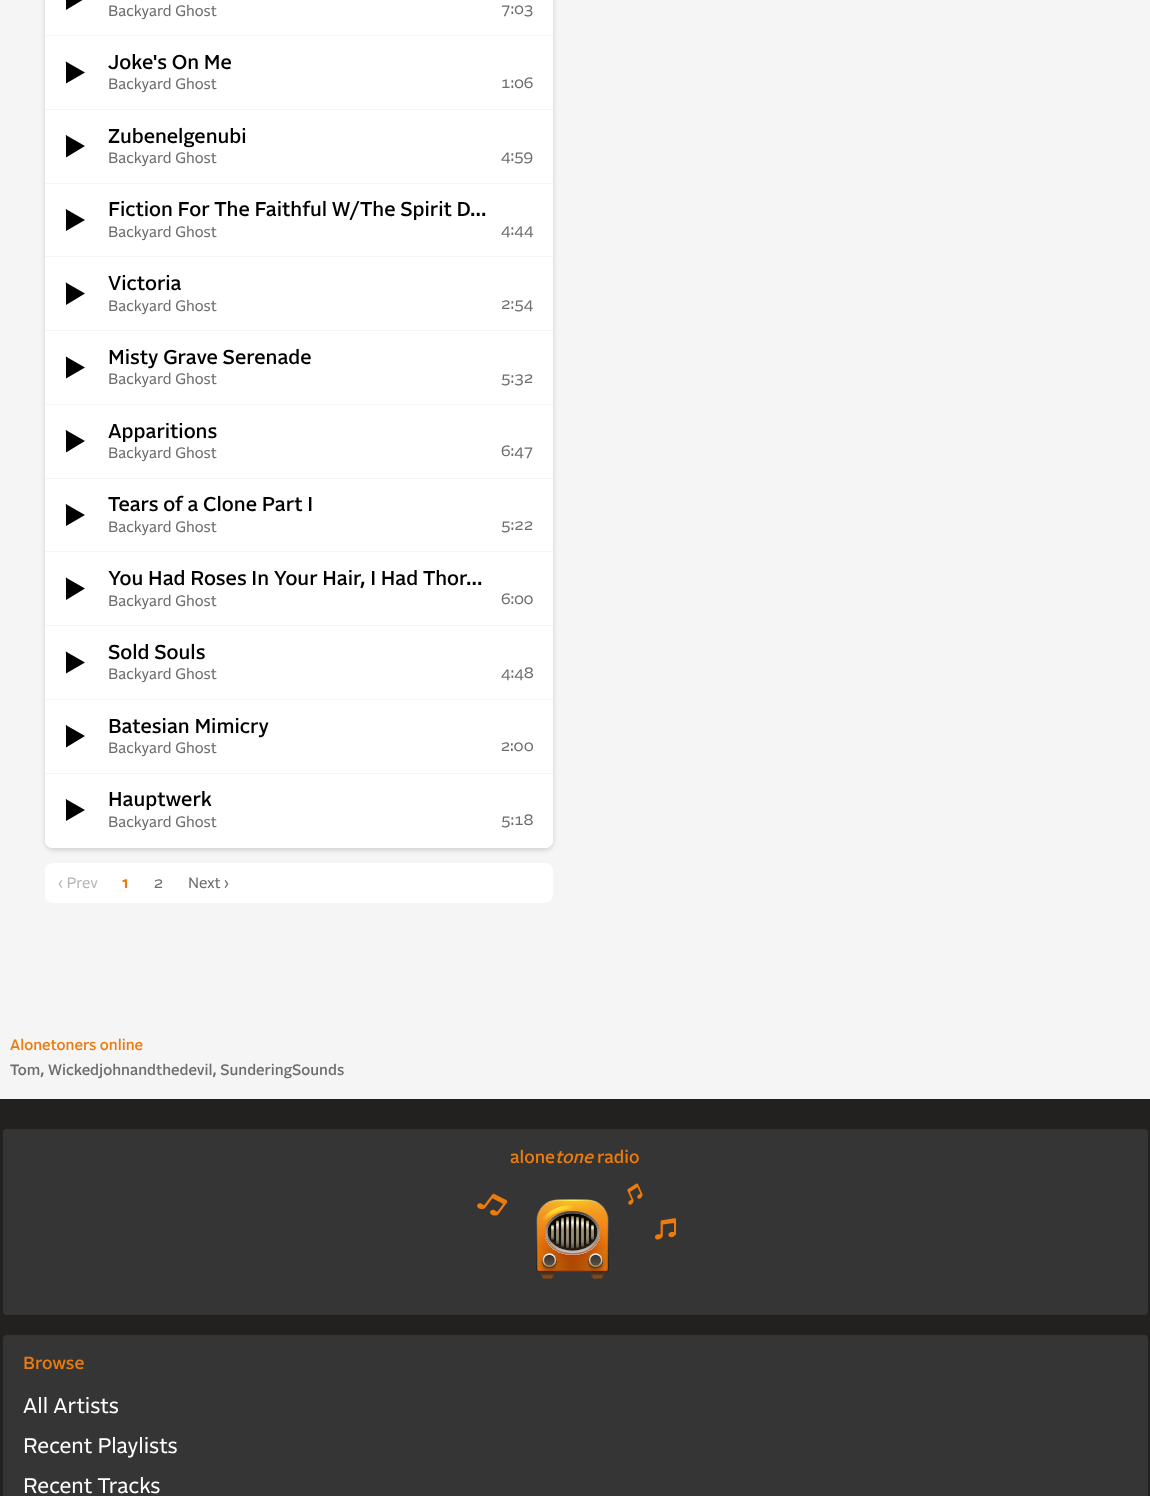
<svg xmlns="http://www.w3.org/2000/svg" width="1150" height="1496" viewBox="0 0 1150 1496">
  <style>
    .t1 { font: 15px 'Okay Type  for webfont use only'; fill: #6e6d6d; }
    .t2 { font: 15px 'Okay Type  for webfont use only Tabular'; fill: #6e6d6d; }
    .t3 { font: 500 20px 'Okay Type  for webfont use only'; fill: #000; }
    .t4 { font: 15px 'Okay Type  for webfont use only'; fill: #b7b6b6; }
    .t5 { font: bold 15px 'Okay Type  for webfont use only'; fill: #eb7b0c; }
    .t6 { font: 500 15px 'Okay Type  for webfont use only'; fill: #eb7b0c; }
    .t7 { font: 500 15px 'Okay Type  for webfont use only'; fill: #6e6d6d; }
    .t8 { font: 500 17.5px 'Okay Type  for webfont use only'; fill: #eb7b0c; }
    .t9 { font: italic 500 17.5px 'Okay Type  for webfont use only'; fill: #eb7b0c; }
    .t10 { font: 21.25px 'Okay Type  for webfont use only'; fill: #fff; }
  </style>
  <defs>
    <clipPath id="clip1"><path d="M45 774H553V840C553 844.5 549.5 848 545 848H53C48.5 848 45 844.5 45 840Z"/></clipPath>
  </defs>
  <rect width="100%" height="100%" fill="#f5f5f5"/>
  <rect x="45" y="-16" width="508" height="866" rx="8" fill="#00000026" filter="blur(2.5px)"/>
  <rect x="45" y="-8" width="508" height="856" rx="8" fill="#fff"/>
  <rect x="45" y="35" width="508" height="1" fill="#f5f5f5"/>
  <path d="M66 10V-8.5C66-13 65-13 67.5-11.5L85-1.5Z" fill="#000"/>
  <text x="108" y="16" class="t1">Backyard Ghost</text>
  <text x="501" y="14" class="t2">7:03</text>
  <rect x="45" y="109" width="508" height="1" fill="#f5f5f5"/>
  <path d="M66 83.5V65C66 61 65 61 67.5 62.5L85 72.5Z" fill="#000"/>
  <text x="108" y="69" class="t3">Joke's On Me</text>
  <text x="108" y="89" class="t1">Backyard Ghost</text>
  <text x="501" y="88" class="t2">1:06</text>
  <rect x="45" y="183" width="508" height="1" fill="#f5f5f5"/>
  <path d="M66 157.5V139C66 134.5 65 134.5 67.5 136L85 146Z" fill="#000"/>
  <text x="108" y="143" class="t3">Zubenelgenubi</text>
  <text x="108" y="163" class="t1">Backyard Ghost</text>
  <text x="501" y="161" class="t1">4:59</text>
  <rect x="45" y="256" width="508" height="1" fill="#f5f5f5"/>
  <path d="M66 231V212.5C66 208.5 65 208.5 67.5 210L85 220Z" fill="#000"/>
  <text x="108" y="216" class="t3">Fiction For The Faithful W/The Spirit D...</text>
  <text x="108" y="237" class="t1">Backyard Ghost</text>
  <text x="501" y="235" class="t1">4:44</text>
  <rect x="45" y="330" width="508" height="1" fill="#f5f5f5"/>
  <path d="M66 305V286.5C66 282 65 282 67.5 283.5L85 293.5Z" fill="#000"/>
  <text x="108" y="290" class="t3">Victoria</text>
  <text x="108" y="311" class="t1">Backyard Ghost</text>
  <text x="501" y="309" class="t2">2:54</text>
  <rect x="45" y="404" width="508" height="1" fill="#f5f5f5"/>
  <path d="M66 378.5V360C66 356 65 356 67.5 357.5L85 367.5Z" fill="#000"/>
  <text x="108" y="364" class="t3">Misty Grave Serenade</text>
  <text x="108" y="384" class="t1">Backyard Ghost</text>
  <text x="501" y="383" class="t2">5:32</text>
  <rect x="45" y="478" width="508" height="1" fill="#f5f5f5"/>
  <path d="M66 452.5V434C66 429.5 65 429.5 67.5 431L85 441Z" fill="#000"/>
  <text x="108" y="438" class="t3">Apparitions</text>
  <text x="108" y="458" class="t1">Backyard Ghost</text>
  <text x="501" y="456" class="t2">6:47</text>
  <rect x="45" y="551" width="508" height="1" fill="#f5f5f5"/>
  <path d="M66 526V507.5C66 503.5 65 503.5 67.5 505L85 515Z" fill="#000"/>
  <text x="108" y="511" class="t3">Tears of a Clone Part I</text>
  <text x="108" y="532" class="t1">Backyard Ghost</text>
  <text x="501" y="530" class="t2">5:22</text>
  <rect x="45" y="625" width="508" height="1" fill="#f5f5f5"/>
  <path d="M66 600V581.5C66 577 65 577 67.5 578.5L85 588.5Z" fill="#000"/>
  <text x="108" y="585" class="t3">You Had Roses In Your Hair, I Had Thor...</text>
  <text x="108" y="606" class="t1">Backyard Ghost</text>
  <text x="501" y="604" class="t2">6:00</text>
  <rect x="45" y="699" width="508" height="1" fill="#f5f5f5"/>
  <path d="M66 673.5V655C66 651 65 651 67.5 652.5L85 662.5Z" fill="#000"/>
  <text x="108" y="659" class="t3">Sold Souls</text>
  <text x="108" y="679" class="t1">Backyard Ghost</text>
  <text x="501" y="678" class="t1">4:48</text>
  <rect x="45" y="773" width="508" height="1" fill="#f5f5f5"/>
  <path d="M66 747.5V729C66 724.5 65 724.5 67.5 726L85 736Z" fill="#000"/>
  <text x="108" y="733" class="t3">Batesian Mimicry</text>
  <text x="108" y="753" class="t1">Backyard Ghost</text>
  <text x="501" y="751" class="t1">2:00</text>
  <path d="M45 774H553V840C553 844.5 549.5 848 545 848H53C48.5 848 45 844.5 45 840Z" fill="#fff"/>
  <g clip-path="url(#clip1)">
    <rect x="45" y="774" width="508" height="72" fill="#fff"/>
  </g>
  <path d="M66 821V802.5C66 798.5 65 798.5 67.5 800L85 810Z" fill="#000"/>
  <text x="108" y="806" class="t3">Hauptwerk</text>
  <text x="108" y="827" class="t1">Backyard Ghost</text>
  <text x="501" y="825" class="t2">5:18</text>
  <rect x="45" y="863" width="508" height="40" rx="8" fill="#fff"/>
  <text x="58" y="888" class="t4">‹ Prev</text>
  <text x="122" y="888" class="t5">1</text>
  <text x="154" y="888" class="t1">2</text>
  <text x="188" y="888" class="t1">Next ›</text>
  <text x="10" y="1050" class="t6">Alonetoners online</text>
  <text x="10" y="1075" class="t7">Tom, Wickedjohnandthedevil, SunderingSounds</text>
  <rect x="0" y="1099" width="1150" height="397" fill="#232120"/>
  <rect x="3" y="1129" width="1145" height="186" rx="4" fill="#353535"/>
  <text x="510" y="1163" class="t8">alone</text>
  <text x="555" y="1163" class="t9">tone</text>
  <text x="597" y="1163" class="t8">radio</text>
  <image x="477" y="1183" width="200" height="97" href="images/1.png"/>
  <rect x="3" y="1335" width="1145" height="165" rx="4" fill="#353535"/>
  <text x="23" y="1369" class="t8">Browse</text>
  <text x="23" y="1413" class="t10">All Artists</text>
  <text x="23" y="1453" class="t10">Recent Playlists</text>
  <text x="23" y="1493" class="t10">Recent Tracks</text>
</svg>
